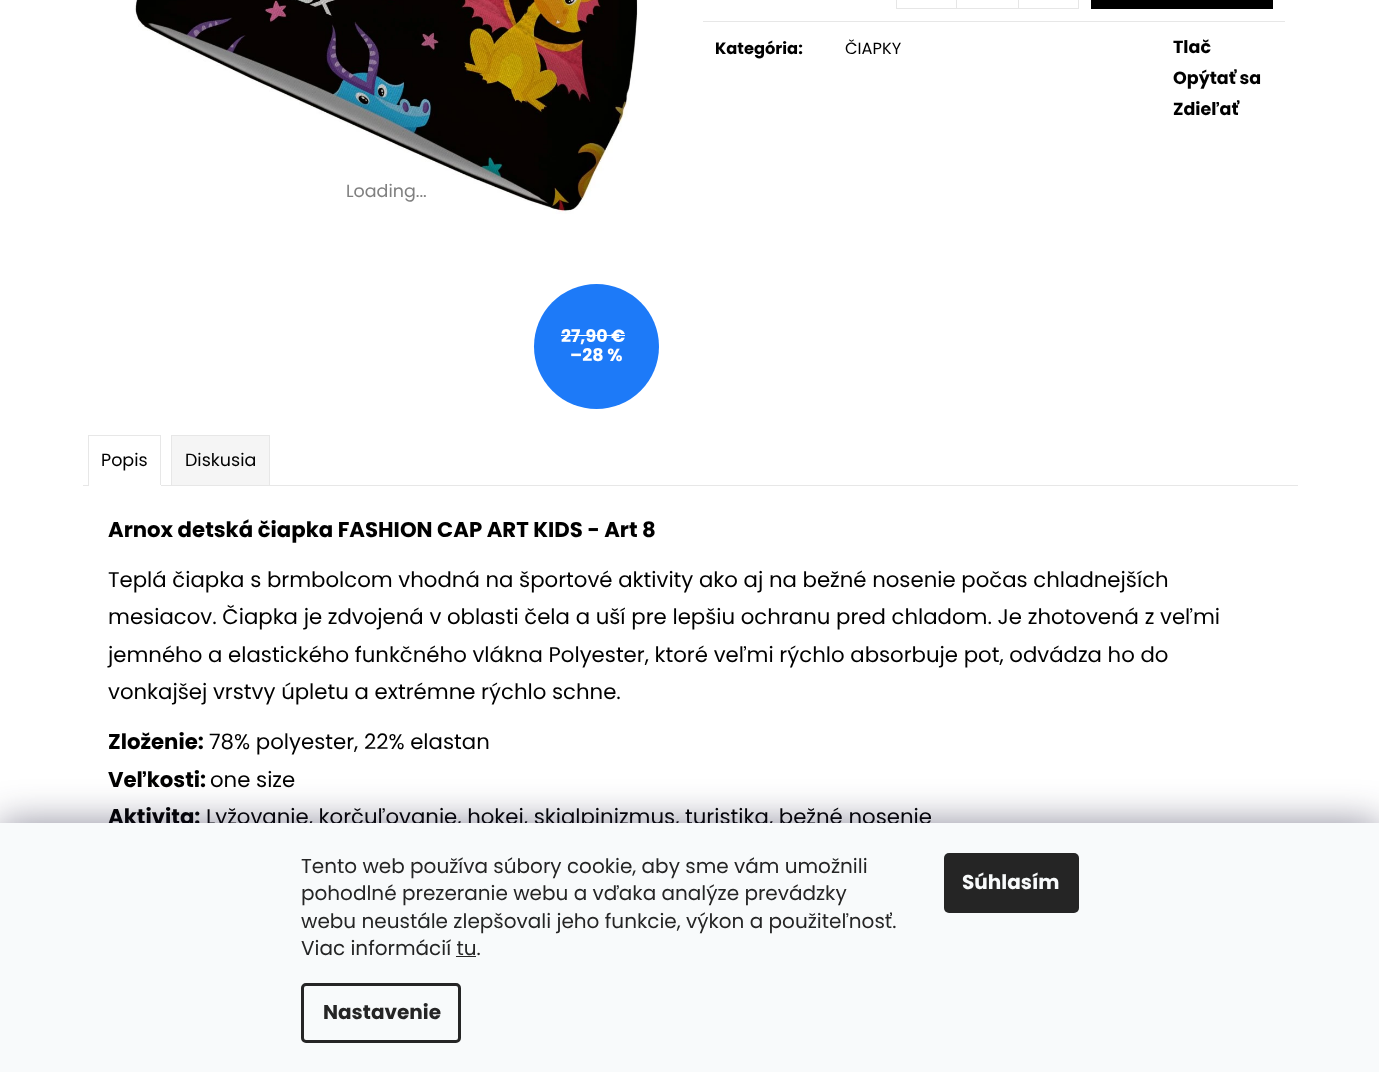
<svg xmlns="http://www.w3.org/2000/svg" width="1379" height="1072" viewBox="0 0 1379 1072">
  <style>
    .t1 { font: bold 16.25px Poppins; fill: #000; }
    .t2 { font: 16.25px Poppins; fill: #000; }
    .t3 { font: bold 17.5px Poppins; fill: #000; }
    .t4 { font: 17.5px Poppins; fill: #808080; }
    .t5 { font: bold 17.5px Poppins; fill: #fff; }
    .t6 { font: 17.5px Poppins; fill: #000; }
    .t7 { font: bold 21.25px Poppins; fill: #000; }
    .t8 { font: 21.25px Poppins; fill: #000; }
    .t9 { font: 20px Poppins; fill: #252525; }
    .t10 { font: bold 20px Poppins; fill: #252525; }
    .t11 { font: bold 20px Poppins; fill: #f8fafb; }
  </style>
  <rect width="100%" height="100%" fill="#fff"/>
  <rect x="703" y="21" width="582" height="1" fill="#e7e7e7"/>
  <rect x="896.5" y="-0.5" width="182" height="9" fill="none" stroke="#e6e6e6"/>
  <rect x="956" y="0" width="1" height="8" fill="#e6e6e6"/>
  <rect x="1018" y="0" width="1" height="8" fill="#e6e6e6"/>
  <rect x="1091" y="0" width="182" height="9" fill="#000"/>
  <text x="715" y="54" class="t1">Kategória:</text>
  <text x="845" y="54" class="t2">ČIAPKY</text>
  <text x="1173" y="53" class="t3">Tlač</text>
  <text x="1173" y="84" class="t3">Opýtať sa</text>
  <text x="1173" y="115" class="t3">Zdieľať</text>
  <image x="134" y="0" width="505" height="214" href="images/1.png"/>
  <text x="346" y="197" class="t4">Loading...</text>
  <circle cx="596.5" cy="346.5" r="62.5" fill="#1d7af8"/>
  <text x="561" y="342" class="t5">27,90 €</text>
  <rect x="561" y="335" width="64" height="1" fill="#fff"/>
  <text x="570" y="361" class="t5">–28 %</text>
  <rect x="83" y="485" width="1215" height="1" fill="#e7e7e7"/>
  <rect x="88" y="435" width="73" height="1" fill="#e7e7e7"/>
  <rect x="160" y="435" width="1" height="51" fill="#e7e7e7"/>
  <rect x="88" y="485" width="73" height="1" fill="#fff"/>
  <rect x="88" y="435" width="1" height="51" fill="#e7e7e7"/>
  <text x="101" y="466" class="t6">Popis</text>
  <rect x="171.5" y="435.5" width="98" height="50" fill="#f5f5f5" stroke="#e7e7e7"/>
  <text x="185" y="466" class="t6">Diskusia</text>
  <text x="108" y="537" class="t7">Arnox detská čiapka FASHION CAP ART KIDS - Art 8</text>
  <text x="108" y="587" class="t8">Teplá čiapka s brmbolcom vhodná na športové aktivity ako aj na bežné nosenie počas chladnejších</text>
  <text x="108" y="624" class="t8">mesiacov. Čiapka je zdvojená v oblasti čela a uší pre lepšiu ochranu pred chladom. Je zhotovená z veľmi</text>
  <text x="108" y="662" class="t8">jemného a elastického funkčného vlákna Polyester, ktoré veľmi rýchlo absorbuje pot, odvádza ho do</text>
  <text x="108" y="699" class="t8">vonkajšej vrstvy úpletu a extrémne rýchlo schne.</text>
  <text x="108" y="749" class="t7">Zloženie:</text>
  <text x="209" y="749" class="t8">78% polyester, 22% elastan</text>
  <text x="108" y="787" class="t7">Veľkosti:</text>
  <text x="210" y="787" class="t8">one size</text>
  <text x="108" y="824" class="t7">Aktivita:</text>
  <text x="206" y="824" class="t8">Lyžovanie, korčuľovanie, hokej, skialpinizmus, turistika, bežné nosenie</text>
  <rect x="0" y="823" width="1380" height="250" fill="#1b193980" filter="blur(19px)"/>
  <rect x="0" y="823" width="1379" height="249" fill="#f8fafb"/>
  <text x="301" y="873" class="t9">Tento web používa súbory cookie, aby sme vám umožnili</text>
  <text x="301" y="900" class="t9">pohodlné prezeranie webu a vďaka analýze prevádzky</text>
  <text x="301" y="928" class="t9">webu neustále zlepšovali jeho funkcie, výkon a použiteľnosť.</text>
  <text x="301" y="955" class="t9">Viac informácií tu.</text>
  <rect x="456" y="956" width="20" height="1" fill="#252525"/>
  <rect x="302.5" y="984.5" width="157" height="57" rx="3.5" fill="none" stroke="#252525" stroke-width="3"/>
  <text x="323" y="1019" class="t10">Nastavenie</text>
  <rect x="944" y="853" width="135" height="60" rx="5" fill="#252525"/>
  <text x="962" y="889" class="t11">Súhlasím</text>
</svg>
